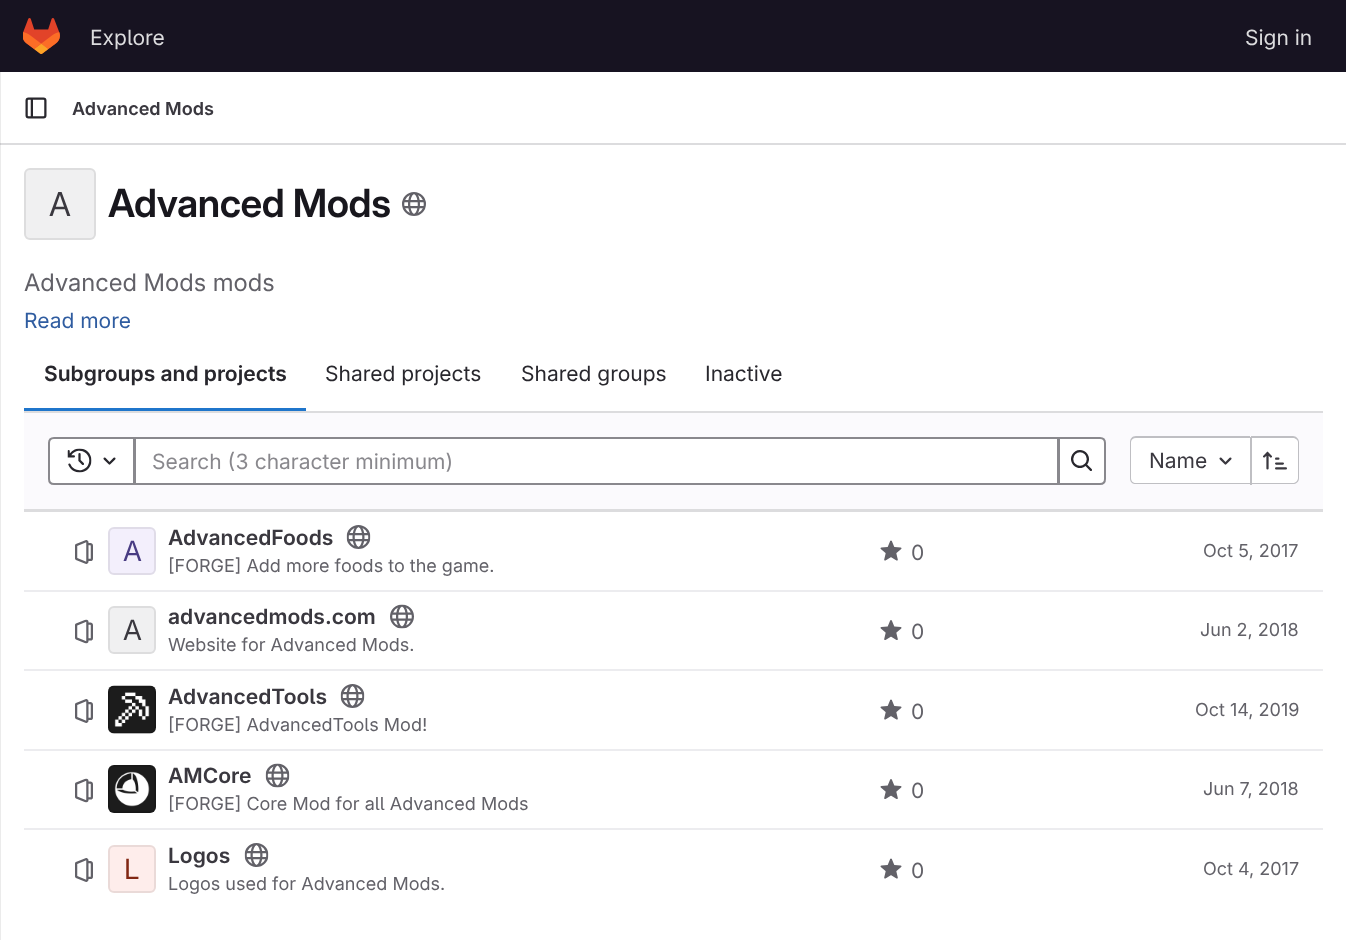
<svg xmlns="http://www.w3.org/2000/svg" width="1346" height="940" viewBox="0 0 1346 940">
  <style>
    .t1 { font: 21px 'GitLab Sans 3'; fill: #dcdcde; }
    .t2 { font: 600 18px 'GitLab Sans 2'; fill: #3a383f; }
    .t3 { font: 33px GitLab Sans; fill: #3a383f; }
    .t4 { font: 600 38.75px GitLab Sans; letter-spacing: -0.4px; fill: #18171d; }
    .t5 { font: 24px 'GitLab Sans 2'; fill: #626168; }
    .t6 { font: 21px 'GitLab Sans 3'; fill: #2f5ca0; }
    .t7 { font: 600 21px 'GitLab Sans 2'; fill: #28272d; }
    .t8 { font: 21px 'GitLab Sans 3'; fill: #28272d; }
    .t9 { font: 21px 'GitLab Sans 3'; fill: #89888d; }
    .t10 { font: 21px 'GitLab Sans 3'; fill: #3a383f; }
    .t11 { font: 28px 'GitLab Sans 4'; fill: #493c83; }
    .t12 { font: 600 21px 'GitLab Sans 2'; fill: #3a383f; }
    .t13 { font: 18px 'GitLab Sans 3'; fill: #626168; }
    .t14 { font: 21px 'GitLab Sans 3'; fill: #626168; }
    .t15 { font: 28px 'GitLab Sans 4'; fill: #3a383f; }
    .t16 { font: 28px 'GitLab Sans 4'; fill: #812713; }
  </style>
  <rect width="100%" height="100%" fill="#fff"/>
  <rect x="0" y="72" width="1" height="868" fill="#ebebeb"/>
  <rect x="0" y="0" width="1346" height="72" fill="#171321"/>
  <image x="23" y="18" width="37" height="36" href="images/1.png"/>
  <text x="90" y="45" class="t1">Explore</text>
  <text x="1245" y="45" class="t1">Sign in</text>
  <rect x="0" y="143" width="1346" height="2" fill="#dcdcde"/>
  <rect x="0" y="143" width="1" height="2" fill="#cbcbcd"/>
  <image x="25" y="97" width="22" height="22" href="images/2.png"/>
  <text x="72" y="115" class="t2">Advanced Mods</text>
  <rect x="24" y="168" width="72" height="72" rx="6" fill="#f0f0f1"/>
  <rect x="25" y="169" width="70" height="70" rx="5" fill="none" stroke="#05050614" stroke-width="2"/>
  <text x="49" y="216" class="t3">A</text>
  <text x="108" y="217" class="t4">Advanced Mods</text>
  <image x="402" y="192" width="24" height="24" href="images/3.png"/>
  <text x="24" y="291" class="t5">Advanced Mods mods</text>
  <text x="24" y="328" class="t6">Read more</text>
  <text x="44" y="381" class="t7">Subgroups and projects</text>
  <rect x="24" y="408" width="282" height="3" fill="#1f75cb"/>
  <text x="325" y="381" class="t8">Shared projects</text>
  <text x="521" y="381" class="t8">Shared groups</text>
  <text x="705" y="381" class="t8">Inactive</text>
  <rect x="24" y="413" width="1299" height="96" fill="#fbfafd"/>
  <rect x="24" y="411" width="1299" height="2" fill="#dcdcde"/>
  <rect x="135" y="438" width="923" height="46" fill="#fff" stroke="#89888d" stroke-width="2"/>
  <path d="M54 438H134V484H54C51 484 49 482 49 479V443C49 440 51 438 54 438Z" fill="#fff" stroke="#89888d" stroke-width="2"/>
  <image x="67" y="448" width="25" height="25" href="images/4.png"/>
  <image x="103" y="457" width="13" height="8" href="images/5.png"/>
  <text x="152" y="469" class="t9">Search (3 character minimum)</text>
  <path d="M1059 438H1100C1103 438 1105 440 1105 443V479C1105 482 1103 484 1100 484H1059Z" fill="#fff" stroke="#89888d" stroke-width="2"/>
  <image x="1071" y="450" width="21" height="21" href="images/6.png"/>
  <path d="M1136 438H1250V483H1136C1133 483 1131 481 1131 478V443C1131 440 1133 438 1136 438Z" fill="#fff"/>
  <path d="M1136 436H1250V484H1136C1132 484 1130 482 1130 478V442C1130 439 1132 436 1136 436ZM1136 438H1250V483H1136C1133 483 1131 481 1131 478V442C1131 440 1133 438 1136 438Z" fill="#bfbfc3" fill-rule="evenodd"/>
  <text x="1149" y="468" class="t10">Name</text>
  <image x="1219" y="457" width="13" height="8" href="images/7.png"/>
  <path d="M1251 438H1293C1296 438 1298 440 1298 443V478C1298 481 1296 483 1293 483H1251Z" fill="#fff"/>
  <path d="M1251 436H1293C1296 436 1299 439 1299 442V478C1299 482 1296 484 1293 484H1251ZM1251 438H1293C1295 438 1298 440 1298 442V478C1298 481 1295 483 1293 483H1251Z" fill="#bfbfc3" fill-rule="evenodd"/>
  <rect x="1250" y="437" width="2" height="48" fill="#bfbfc3"/>
  <image x="1263" y="451" width="24" height="19" href="images/8.png"/>
  <rect x="24" y="509" width="1299" height="3" fill="#dcdcde"/>
  <rect x="24" y="590" width="1299" height="2" fill="#ececef"/>
  <image x="75" y="540" width="18" height="24" href="images/9.png"/>
  <rect x="108" y="527" width="48" height="48" rx="6" fill="#f3effc"/>
  <rect x="109" y="528" width="46" height="46" rx="5" fill="none" stroke="#05050614" stroke-width="2"/>
  <text x="123" y="561" class="t11">A</text>
  <text x="168" y="545" class="t12">AdvancedFoods</text>
  <image x="346" y="525" width="25" height="24" href="images/10.png"/>
  <text x="168" y="572" class="t13">[FORGE] Add more foods to the game.</text>
  <image x="880" y="540" width="22" height="21" href="images/11.png"/>
  <text x="911" y="560" class="t14">0</text>
  <text x="1203" y="557" class="t13">Oct 5, 2017</text>
  <rect x="24" y="669" width="1299" height="2" fill="#ececef"/>
  <image x="75" y="619" width="18" height="25" href="images/12.png"/>
  <rect x="108" y="606" width="48" height="48" rx="6" fill="#f0f0f1"/>
  <rect x="109" y="607" width="46" height="46" rx="5" fill="none" stroke="#05050614" stroke-width="2"/>
  <text x="123" y="640" class="t15">A</text>
  <text x="168" y="624" class="t12">advancedmods.com</text>
  <image x="390" y="604" width="24" height="25" href="images/13.png"/>
  <text x="168" y="651" class="t13">Website for Advanced Mods.</text>
  <image x="880" y="620" width="22" height="20" href="images/14.png"/>
  <text x="911" y="639" class="t14">0</text>
  <text x="1200" y="636" class="t13">Jun 2, 2018</text>
  <rect x="24" y="749" width="1299" height="2" fill="#ececef"/>
  <image x="75" y="699" width="18" height="24" href="images/9.png"/>
  <image x="108" y="685" width="48" height="49" href="images/15.png"/>
  <rect x="109" y="687" width="46" height="46" rx="5" fill="none" stroke="#05050614" stroke-width="2"/>
  <text x="168" y="704" class="t12">AdvancedTools</text>
  <image x="340" y="684" width="25" height="24" href="images/16.png"/>
  <text x="168" y="731" class="t13">[FORGE] AdvancedTools Mod!</text>
  <image x="880" y="699" width="22" height="21" href="images/11.png"/>
  <text x="911" y="719" class="t14">0</text>
  <text x="1195" y="716" class="t13">Oct 14, 2019</text>
  <rect x="24" y="828" width="1299" height="2" fill="#ececef"/>
  <image x="75" y="778" width="18" height="25" href="images/12.png"/>
  <image x="108" y="765" width="48" height="48" href="images/17.png"/>
  <rect x="109" y="766" width="46" height="46" rx="5" fill="none" stroke="#05050614" stroke-width="2"/>
  <text x="168" y="783" class="t12">AMCore</text>
  <image x="265" y="763" width="25" height="25" href="images/18.png"/>
  <text x="168" y="810" class="t13">[FORGE] Core Mod for all Advanced Mods</text>
  <image x="880" y="779" width="22" height="20" href="images/14.png"/>
  <text x="911" y="798" class="t14">0</text>
  <text x="1203" y="795" class="t13">Jun 7, 2018</text>
  <image x="75" y="858" width="18" height="24" href="images/9.png"/>
  <rect x="108" y="845" width="48" height="48" rx="6" fill="#feedeb"/>
  <rect x="109" y="846" width="46" height="46" rx="5" fill="none" stroke="#05050614" stroke-width="2"/>
  <text x="124" y="879" class="t16">L</text>
  <text x="168" y="863" class="t12">Logos</text>
  <image x="244" y="843" width="25" height="24" href="images/19.png"/>
  <text x="168" y="890" class="t13">Logos used for Advanced Mods.</text>
  <image x="880" y="858" width="22" height="21" href="images/11.png"/>
  <text x="911" y="878" class="t14">0</text>
  <text x="1203" y="875" class="t13">Oct 4, 2017</text>
</svg>
